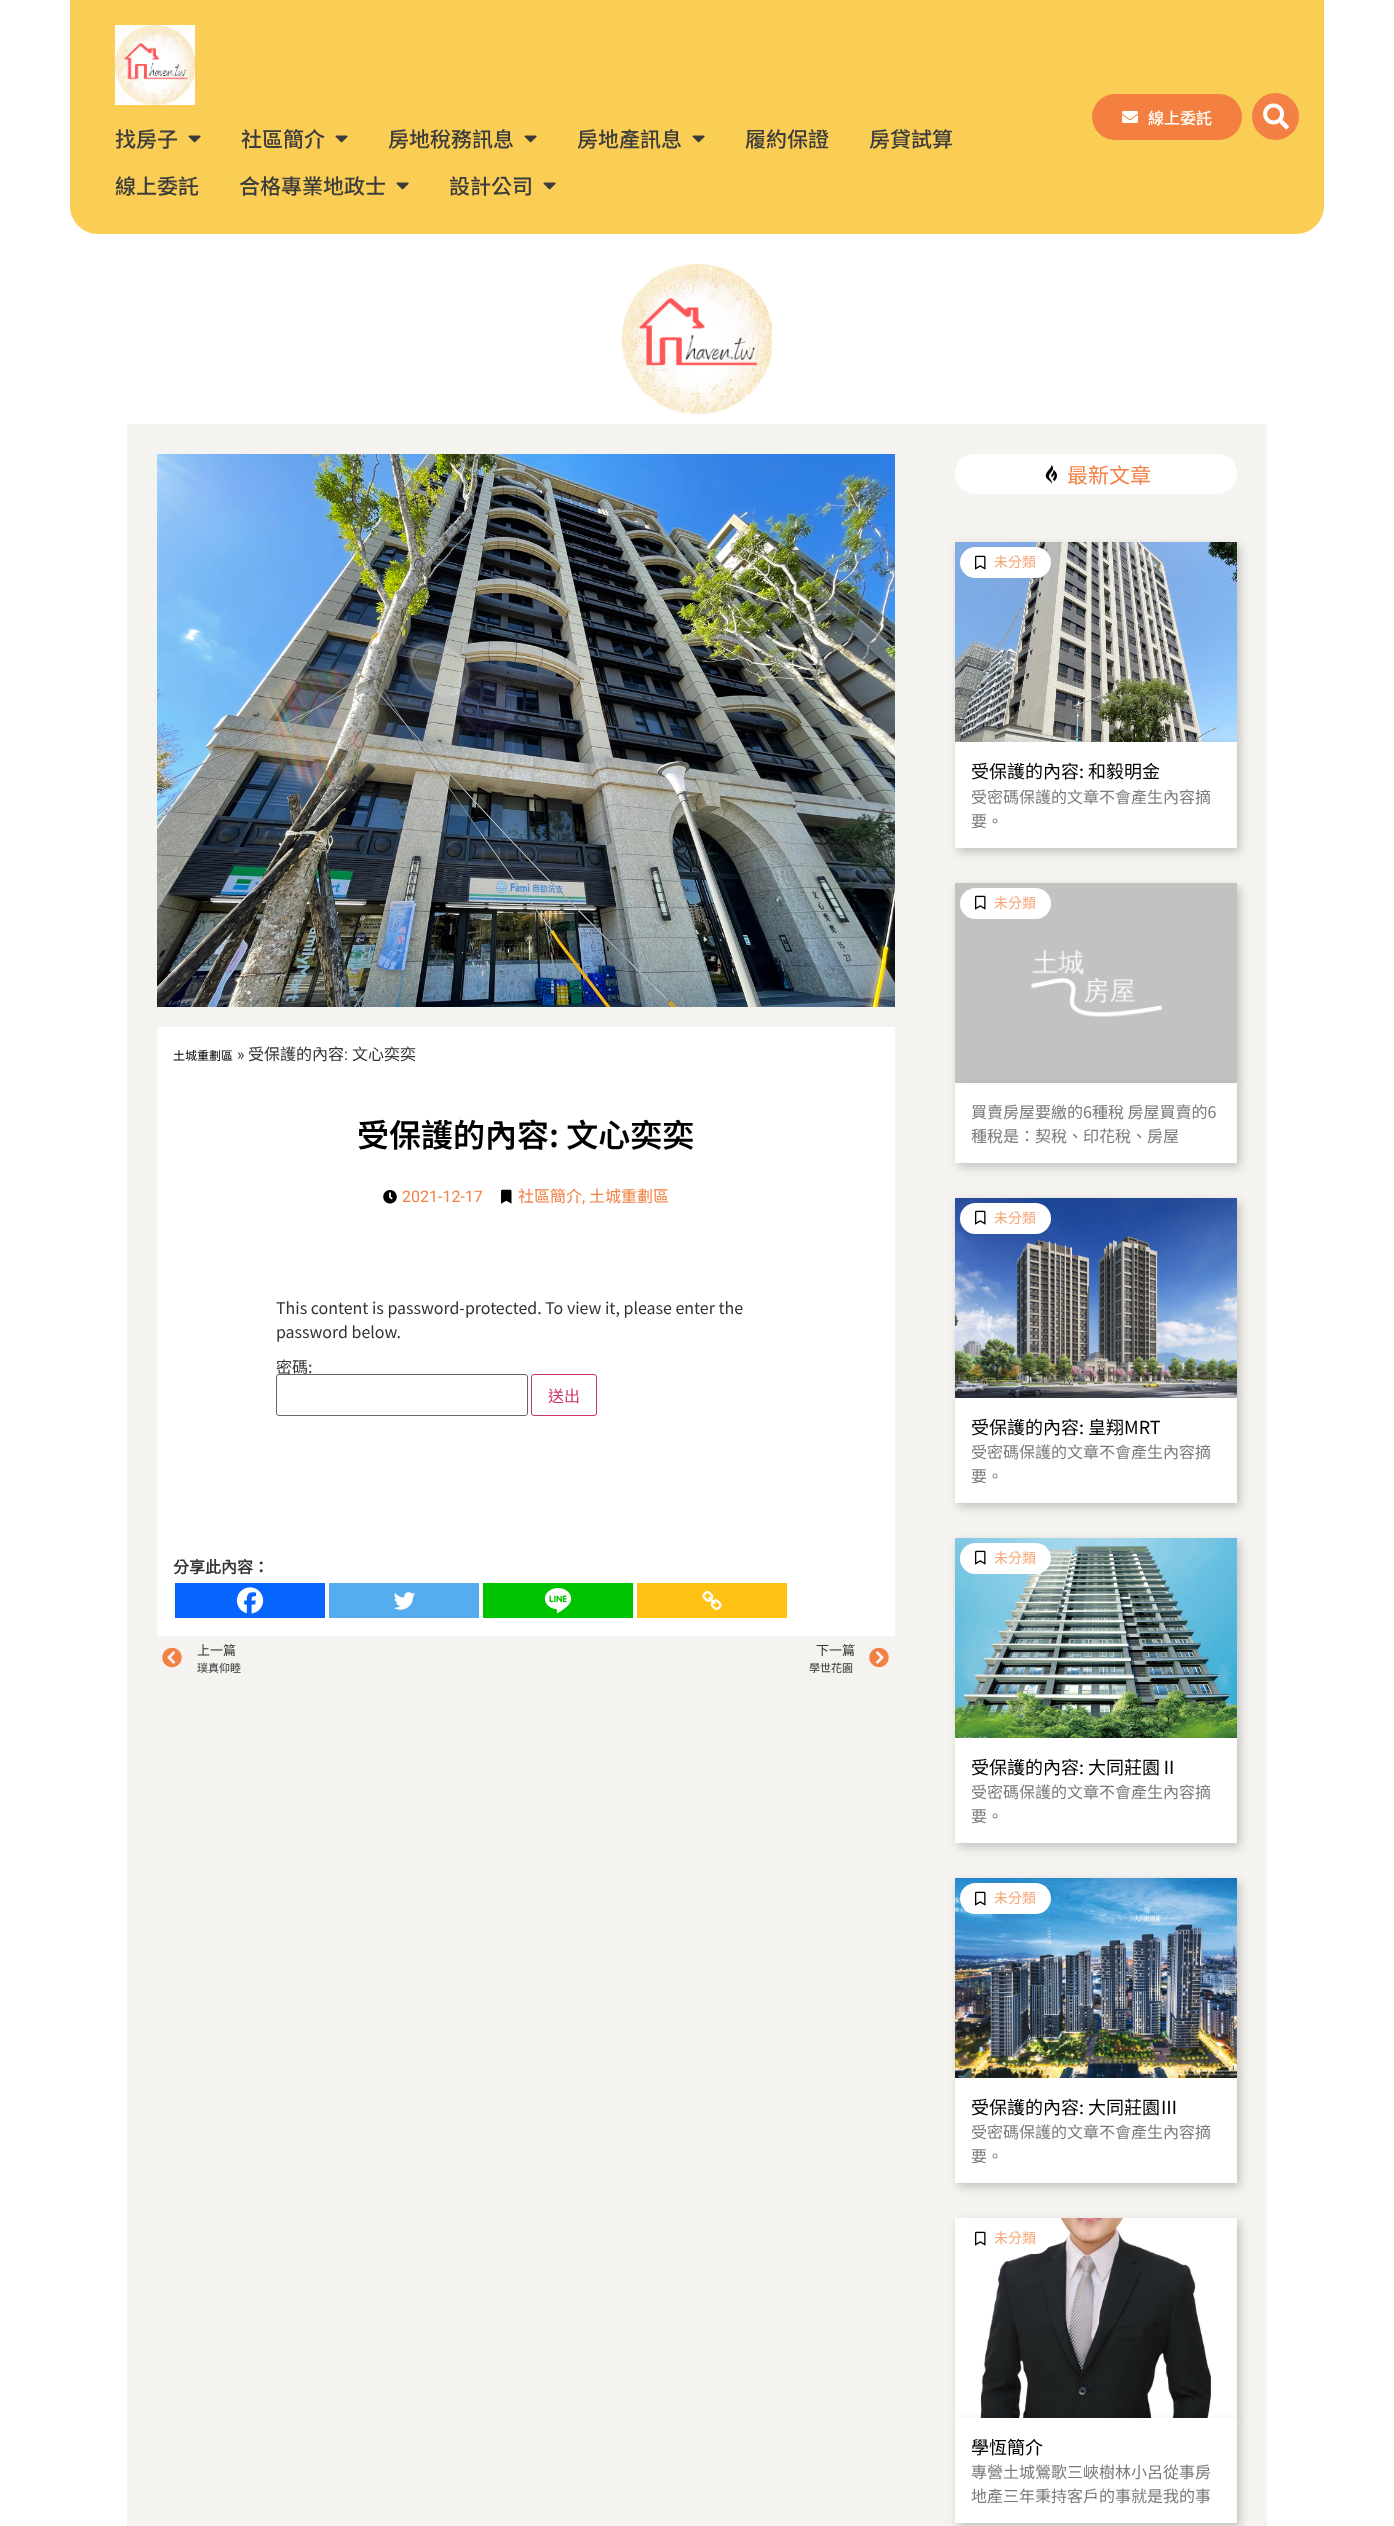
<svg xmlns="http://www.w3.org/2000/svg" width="1394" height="2526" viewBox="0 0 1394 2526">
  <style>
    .t1 { font: 500 16px Noto Sans TC; fill: #fff; }
    .t2 { font: 500 21px Noto Sans TC; fill: #3c3c3c; }
    .t3 { font: 12px Noto Sans CJK TC; fill: #000; }
    .t4 { font: 16px Roboto; fill: #333; }
    .t5 { font: 16px Noto Sans CJK TC; fill: #333; }
    .t6 { font: 600 32px Noto Sans TC; fill: #000; }
    .t7 { font: 16px Roboto; fill: #f38044; }
    .t8 { font: 16px Noto Sans CJK TC; fill: #f38044; }
    .t9 { font: 16px Noto Sans TC; fill: #333; }
    .t10 { font: 16px Noto Sans TC; fill: #c36; }
    .t11 { font: bold 16px Noto Sans CJK TC; fill: #333; }
    .t12 { font: 13px Noto Sans CJK TC; fill: #333; }
    .t13 { font: 11px Noto Sans CJK TC; fill: #333; }
    .t14 { font: 21px Noto Sans TC; fill: #f38044; }
    .t15 { font: 14px Noto Sans CJK TC; fill: #f6a372; }
    .t16 { font: 18px Noto Sans TC; fill: #000; }
    .t17 { font: 16px Noto Sans TC; fill: #7a7a7a; }
    .t18 { font: 18px Noto Sans CJK TC; fill: #000; }
  </style>
  <rect width="100%" height="100%" fill="#fff"/>
  <path d="M70 0H1324V206C1324 221.5 1311.5 234 1296 234H98C82.5 234 70 221.5 70 206Z" fill="#face55"/>
  <rect x="1092" y="94" width="150" height="46" rx="23" fill="#f38040"/>
  <image x="1122" y="111" width="16" height="12" href="images/1.png"/>
  <text x="1148" y="124" class="t1">線上委託</text>
  <circle cx="1275.5" cy="116.5" r="23.5" fill="#f38044"/>
  <image x="1263" y="103" width="26" height="27" href="images/2.png"/>
  <image x="115" y="25" width="80" height="80" href="images/3.png"/>
  <text x="115" y="147" class="t2">找房子</text>
  <image x="188" y="135" width="13" height="8" href="images/4.png"/>
  <text x="241" y="147" class="t2">社區簡介</text>
  <image x="335" y="135" width="13" height="8" href="images/4.png"/>
  <text x="388" y="147" class="t2">房地稅務訊息</text>
  <image x="524" y="135" width="13" height="8" href="images/4.png"/>
  <text x="577" y="147" class="t2">房地產訊息</text>
  <image x="692" y="135" width="13" height="8" href="images/4.png"/>
  <text x="745" y="147" class="t2">履約保證</text>
  <text x="869" y="147" class="t2">房貸試算</text>
  <text x="115" y="194" class="t2">線上委託</text>
  <text x="239" y="194" class="t2">合格專業地政士</text>
  <image x="396" y="182" width="13" height="8" href="images/4.png"/>
  <text x="449" y="194" class="t2">設計公司</text>
  <image x="543" y="182" width="13" height="8" href="images/4.png"/>
  <image x="622" y="264" width="150" height="150" href="images/5.png"/>
  <rect x="127" y="424" width="1140" height="2102" fill="#f5f3f0"/>
  <image x="157" y="454" width="738" height="553" href="images/6.png"/>
  <rect x="157" y="1027" width="738" height="609" fill="#fff"/>
  <text x="173" y="1060" class="t3">土城重劃區</text>
  <text x="237" y="1060" class="t4">»</text>
  <text x="248" y="1060" class="t5">受保護的內容</text>
  <text x="344" y="1060" class="t4">:</text>
  <text x="352" y="1060" class="t5">文心奕奕</text>
  <text x="357" y="1147" class="t6">受保護的內容: 文心奕奕</text>
  <image x="383" y="1190" width="14" height="14" href="images/7.png"/>
  <text x="402" y="1202" class="t7">2021-12-17</text>
  <image x="501" y="1189" width="11" height="15" href="images/8.png"/>
  <text x="518" y="1202" class="t8">社區簡介</text>
  <text x="582" y="1202" class="t7">,</text>
  <text x="589" y="1202" class="t8">土城重劃區</text>
  <text x="276" y="1314" class="t9">This content is password-protected. To view it, please enter the</text>
  <text x="276" y="1338" class="t9">password below.</text>
  <text x="276" y="1373" class="t9">密碼:</text>
  <rect x="276.5" y="1374.5" width="251" height="41" rx="2.5" fill="#fff" stroke="#666"/>
  <rect x="531.5" y="1374.5" width="65" height="41" rx="2.5" fill="none" stroke="#c36"/>
  <text x="548" y="1402" class="t10">送出</text>
  <text x="173" y="1573" class="t11">分享此內容：</text>
  <rect x="175" y="1583" width="150" height="35" fill="#0765fe"/>
  <image x="236" y="1587" width="28" height="27" href="images/9.png"/>
  <rect x="329" y="1583" width="150" height="35" fill="#55acee"/>
  <image x="394" y="1592" width="21" height="18" href="images/10.png"/>
  <rect x="483" y="1583" width="150" height="35" fill="#00c300"/>
  <image x="544" y="1588" width="28" height="25" href="images/11.png"/>
  <rect x="637" y="1583" width="150" height="35" fill="#ffc112"/>
  <image x="702" y="1590" width="20" height="21" href="images/12.png"/>
  <image x="162" y="1647" width="20" height="21" href="images/13.png"/>
  <text x="197" y="1655" class="t12">上一篇</text>
  <text x="197" y="1672" class="t13">璞真仰睦</text>
  <text x="816" y="1655" class="t12">下一篇</text>
  <text x="809" y="1672" class="t13">學世花園</text>
  <image x="869" y="1647" width="20" height="21" href="images/14.png"/>
  <rect x="955" y="454" width="282" height="40" rx="20" fill="#fff"/>
  <image x="1045" y="465" width="12" height="19" href="images/15.png"/>
  <text x="1067" y="483" class="t14">最新文章</text>
  <rect x="958" y="546" width="282" height="200" fill="#00000033" filter="blur(5px)"/>
  <image x="955" y="542" width="282" height="200" href="images/16.png"/>
  <rect x="960" y="547" width="91" height="31" rx="15.5" fill="#fff"/>
  <image x="975" y="555" width="11" height="15" href="images/17.png"/>
  <text x="994" y="567" class="t15">未分類</text>
  <rect x="958" y="746" width="282" height="106" fill="#00000033" filter="blur(5px)"/>
  <rect x="955" y="742" width="282" height="106" fill="#fff"/>
  <text x="971" y="778" class="t16">受保護的內容: 和毅明金</text>
  <text x="971" y="803" class="t17">受密碼保護的文章不會產生內容摘</text>
  <text x="971" y="827" class="t17">要。</text>
  <rect x="958" y="887" width="282" height="200" fill="#00000033" filter="blur(5px)"/>
  <rect x="955" y="883" width="282" height="200" fill="#c3c2c0"/>
  <image x="1031" y="949" width="131" height="68" href="images/18.png"/>
  <rect x="960" y="888" width="91" height="31" rx="15.5" fill="#fff"/>
  <image x="975" y="895" width="11" height="15" href="images/17.png"/>
  <text x="994" y="908" class="t15">未分類</text>
  <rect x="958" y="1087" width="282" height="80" fill="#00000033" filter="blur(5px)"/>
  <rect x="955" y="1083" width="282" height="80" fill="#fff"/>
  <text x="971" y="1118" class="t17">買賣房屋要繳的6種稅 房屋買賣的6</text>
  <text x="971" y="1142" class="t17">種稅是：契稅、印花稅、房屋</text>
  <rect x="958" y="1202" width="282" height="200" fill="#00000033" filter="blur(5px)"/>
  <image x="955" y="1198" width="282" height="200" href="images/19.png"/>
  <rect x="960" y="1203" width="91" height="31" rx="15.5" fill="#fff"/>
  <image x="975" y="1210" width="11" height="15" href="images/17.png"/>
  <text x="994" y="1223" class="t15">未分類</text>
  <rect x="958" y="1402" width="282" height="105" fill="#00000033" filter="blur(5px)"/>
  <rect x="955" y="1398" width="282" height="105" fill="#fff"/>
  <text x="971" y="1434" class="t16">受保護的內容: 皇翔MRT</text>
  <text x="971" y="1458" class="t17">受密碼保護的文章不會產生內容摘</text>
  <text x="971" y="1482" class="t17">要。</text>
  <rect x="958" y="1542" width="282" height="200" fill="#00000033" filter="blur(5px)"/>
  <image x="955" y="1538" width="282" height="200" href="images/20.png"/>
  <rect x="960" y="1543" width="91" height="31" rx="15.5" fill="#fff"/>
  <image x="975" y="1550" width="11" height="15" href="images/17.png"/>
  <text x="994" y="1563" class="t15">未分類</text>
  <rect x="958" y="1742" width="282" height="105" fill="#00000033" filter="blur(5px)"/>
  <rect x="955" y="1738" width="282" height="105" fill="#fff"/>
  <text x="971" y="1774" class="t18">受保護的內容: 大同莊園Ⅱ</text>
  <text x="971" y="1798" class="t17">受密碼保護的文章不會產生內容摘</text>
  <text x="971" y="1822" class="t17">要。</text>
  <rect x="958" y="1882" width="282" height="200" fill="#00000033" filter="blur(5px)"/>
  <image x="955" y="1878" width="282" height="200" href="images/21.png"/>
  <rect x="960" y="1883" width="91" height="31" rx="15.5" fill="#fff"/>
  <image x="975" y="1891" width="11" height="15" href="images/17.png"/>
  <text x="994" y="1903" class="t15">未分類</text>
  <rect x="958" y="2082" width="282" height="105" fill="#00000033" filter="blur(5px)"/>
  <rect x="955" y="2078" width="282" height="105" fill="#fff"/>
  <text x="971" y="2114" class="t18">受保護的內容: 大同莊園Ⅲ</text>
  <text x="971" y="2138" class="t17">受密碼保護的文章不會產生內容摘</text>
  <text x="971" y="2162" class="t17">要。</text>
  <rect x="958" y="2222" width="282" height="200" fill="#00000033" filter="blur(5px)"/>
  <image x="955" y="2218" width="282" height="200" href="images/22.png"/>
  <rect x="960" y="2223" width="91" height="31" rx="15.5" fill="#fff"/>
  <image x="975" y="2231" width="11" height="15" href="images/17.png"/>
  <text x="994" y="2243" class="t15">未分類</text>
  <rect x="958" y="2422" width="282" height="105" fill="#00000033" filter="blur(5px)"/>
  <rect x="955" y="2418" width="282" height="105" fill="#fff"/>
  <text x="971" y="2454" class="t16">學恆簡介</text>
  <text x="971" y="2478" class="t17">專營土城鶯歌三峽樹林小呂從事房</text>
  <text x="971" y="2502" class="t17">地產三年秉持客戶的事就是我的事</text>
</svg>
